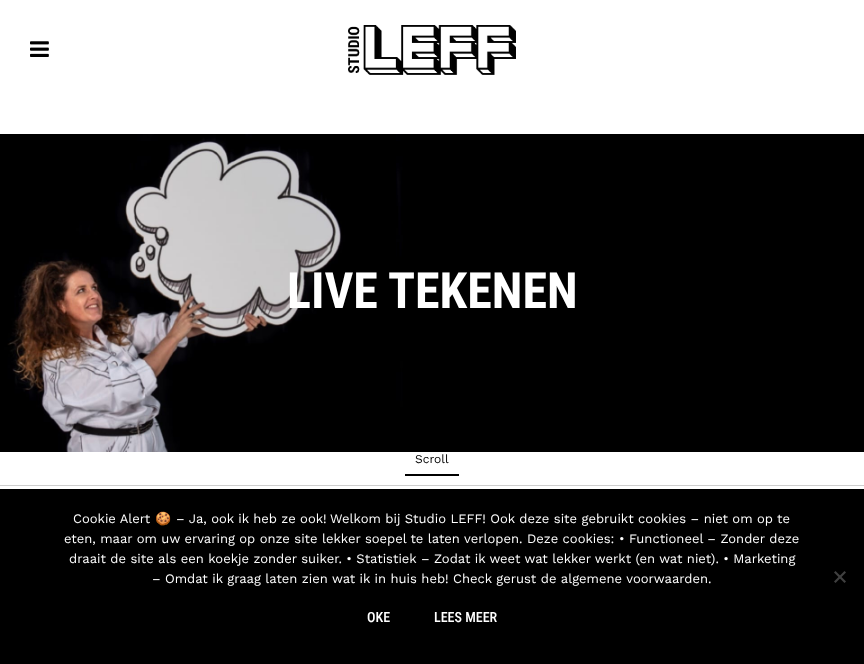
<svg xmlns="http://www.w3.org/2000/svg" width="864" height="664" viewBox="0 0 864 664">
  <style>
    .t1 { font: bold 50px Roboto Condensed; fill: #fff; }
    .t2 { font: 12px Work Sans; fill: #000; }
    .t3 { font: 13px Work Sans; fill: #fff; }
    .t4 { font: 13px Noto Color Emoji; fill: #fff; }
    .t5 { font: 500 14px Roboto Condensed; fill: #fff; }
  </style>
  <rect width="100%" height="100%" fill="#fff"/>
  <image x="30" y="41" width="19" height="16" href="images/1.png"/>
  <image x="348" y="25" width="168" height="50" href="images/2.png"/>
  <image x="0" y="134" width="864" height="318" href="images/3.png"/>
  <text x="287" y="308" class="t1">LIVE TEKENEN</text>
  <text x="415" y="463" class="t2">Scroll</text>
  <rect x="405" y="474" width="54" height="2" fill="#000"/>
  <rect x="0" y="485" width="864" height="1" fill="#cecece"/>
  <rect x="0" y="489" width="864" height="175" fill="#000"/>
  <text x="73" y="523" class="t3">Cookie Alert</text>
  <text x="155" y="523" class="t4">🍪</text>
  <text x="176" y="523" class="t3">– Ja, ook ik heb ze ook!</text>
  <text x="330" y="523" class="t3">Welkom bij Studio LEFF! Ook deze site gebruikt cookies – niet om op te</text>
  <text x="64" y="543" class="t3">eten, maar om uw ervaring op onze site lekker soepel te laten verlopen. Deze cookies: • Functioneel – Zonder deze</text>
  <text x="69" y="563" class="t3">draait de site als een koekje zonder suiker. • Statistiek – Zodat ik weet wat lekker werkt (en wat niet). • Marketing</text>
  <text x="152" y="583" class="t3">– Omdat ik graag laten zien wat ik in huis heb! Check gerust de algemene voorwaarden.</text>
  <path d="M844.5 571L846 572.5L835.5 583L834 581.5Z" fill="#404040"/>
  <path d="M834 572.5L835.5 571L846 581.5L844.5 583Z" fill="#404040"/>
  <text x="367" y="622" class="t5">OKE</text>
  <text x="434" y="622" class="t5">LEES MEER</text>
</svg>
